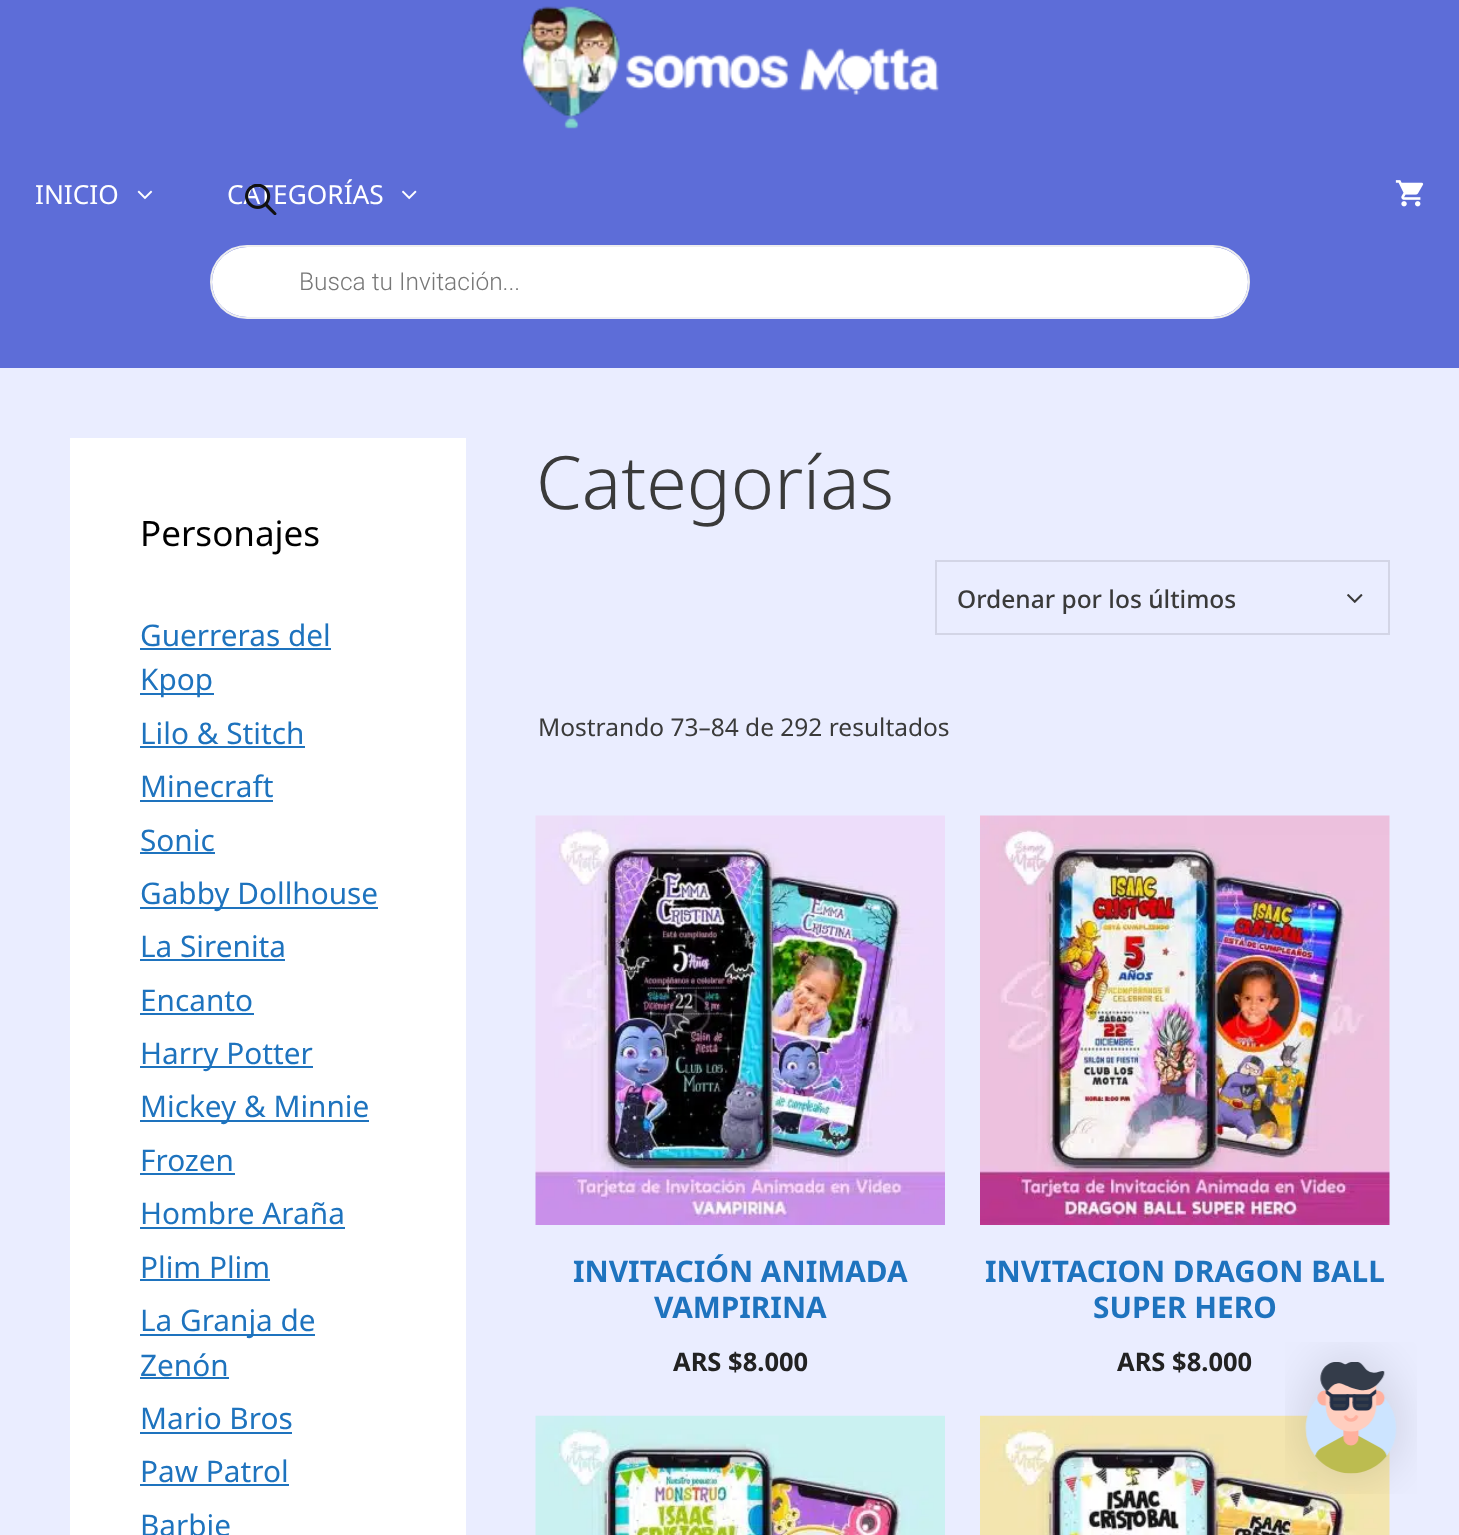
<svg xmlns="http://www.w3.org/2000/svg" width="1459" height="1535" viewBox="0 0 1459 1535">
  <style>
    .t1 { font: 26.25px Noto Sans; fill: #fff; }
    .t2 { font: 300 24.5px Roboto; fill: #777; }
    .t3 { font: 35px Noto Sans; fill: #000; }
    .t4 { font: 29.75px Noto Sans; fill: #1e73be; }
    .t5 { font: 300 73.5px Noto Sans; fill: #3a3a3a; }
    .t6 { font: 500 24.5px Noto Sans; fill: #3a3a3a; }
    .t7 { font: 24.5px Noto Sans; fill: #3a3a3a; }
    .t8 { font: bold 29.75px Noto Sans; fill: #1e73be; }
    .t9 { font: bold 25.5px Noto Sans; fill: #222; }
  </style>
  <rect width="100%" height="100%" fill="#eaedff"/>
  <rect x="0" y="0" width="1459" height="368" fill="#5d6dd8"/>
  <image x="521" y="6" width="418" height="123" href="images/1.png"/>
  <text x="35" y="204" class="t1">INICIO</text>
  <image x="137" y="190" width="16" height="10" href="images/2.png"/>
  <text x="227" y="204" class="t1">CATEGORÍAS</text>
  <image x="402" y="190" width="15" height="10" href="images/3.png"/>
  <image x="1395" y="180" width="29" height="27" href="images/4.png"/>
  <image x="245" y="184" width="32" height="31" href="images/5.png"/>
  <rect x="211" y="246" width="1038" height="72" rx="36" fill="none" stroke="#eee" stroke-width="2"/>
  <rect x="212" y="247" width="1036" height="70" rx="35" fill="#fff"/>
  <text x="299" y="290" class="t2">Busca tu Invitación...</text>
  <rect x="70" y="438" width="396" height="1097" fill="#fff"/>
  <text x="140" y="546" class="t3">Personajes</text>
  <text x="140" y="646" class="t4">Guerreras del</text>
  <rect x="140" y="648" width="191" height="2" fill="#1e73be"/>
  <rect x="140" y="693" width="74" height="2" fill="#1e73be"/>
  <text x="140" y="690" class="t4">Kpop</text>
  <text x="140" y="744" class="t4">Lilo &amp; Stitch</text>
  <rect x="140" y="746" width="165" height="2" fill="#1e73be"/>
  <text x="140" y="797" class="t4">Minecraft</text>
  <rect x="140" y="800" width="133" height="2" fill="#1e73be"/>
  <text x="140" y="851" class="t4">Sonic</text>
  <rect x="140" y="852" width="75" height="2" fill="#1e73be"/>
  <rect x="140" y="907" width="238" height="2" fill="#1e73be"/>
  <text x="140" y="904" class="t4">Gabby Dollhouse</text>
  <text x="140" y="957" class="t4">La Sirenita</text>
  <rect x="140" y="959" width="145" height="2" fill="#1e73be"/>
  <text x="140" y="1011" class="t4">Encanto</text>
  <rect x="140" y="1013" width="114" height="2" fill="#1e73be"/>
  <rect x="140" y="1066" width="173" height="2" fill="#1e73be"/>
  <text x="140" y="1064" class="t4">Harry Potter</text>
  <rect x="140" y="1120" width="229" height="2" fill="#1e73be"/>
  <text x="140" y="1117" class="t4">Mickey &amp; Minnie</text>
  <text x="140" y="1171" class="t4">Frozen</text>
  <rect x="140" y="1173" width="95" height="2" fill="#1e73be"/>
  <text x="140" y="1224" class="t4">Hombre Araña</text>
  <rect x="140" y="1227" width="205" height="2" fill="#1e73be"/>
  <text x="140" y="1278" class="t4">Plim Plim</text>
  <rect x="140" y="1279" width="130" height="2" fill="#1e73be"/>
  <rect x="140" y="1334" width="175" height="2" fill="#1e73be"/>
  <text x="140" y="1331" class="t4">La Granja de</text>
  <text x="140" y="1376" class="t4">Zenón</text>
  <rect x="140" y="1377" width="89" height="2" fill="#1e73be"/>
  <text x="140" y="1429" class="t4">Mario Bros</text>
  <rect x="140" y="1432" width="152" height="2" fill="#1e73be"/>
  <text x="140" y="1482" class="t4">Paw Patrol</text>
  <rect x="140" y="1484" width="149" height="2" fill="#1e73be"/>
  <text x="140" y="1536" class="t4">Barbie</text>
  <text x="536" y="509" class="t5">Categorías</text>
  <rect x="936" y="561" width="453" height="73" fill="none" stroke="#d3d5e6" stroke-width="2"/>
  <text x="957" y="608" class="t6">Ordenar por los últimos</text>
  <image x="1347" y="594" width="16" height="9" href="images/6.png"/>
  <text x="538" y="736" class="t7">Mostrando 73–84 de 292 resultados</text>
  <image x="535" y="815" width="410" height="410" href="images/7.png"/>
  <text x="573" y="1282" class="t8">INVITACIÓN ANIMADA</text>
  <text x="654" y="1318" class="t8">VAMPIRINA</text>
  <text x="673" y="1371" class="t9">ARS $8.000</text>
  <image x="980" y="815" width="410" height="410" href="images/8.png"/>
  <text x="985" y="1282" class="t8">INVITACION DRAGON BALL</text>
  <text x="1093" y="1318" class="t8">SUPER HERO</text>
  <text x="1117" y="1371" class="t9">ARS $8.000</text>
  <image x="535" y="1415" width="410" height="120" href="images/9.png"/>
  <image x="980" y="1415" width="410" height="120" href="images/10.png"/>
  <image x="1285" y="1342" width="132" height="152" href="images/11.png"/>
</svg>
